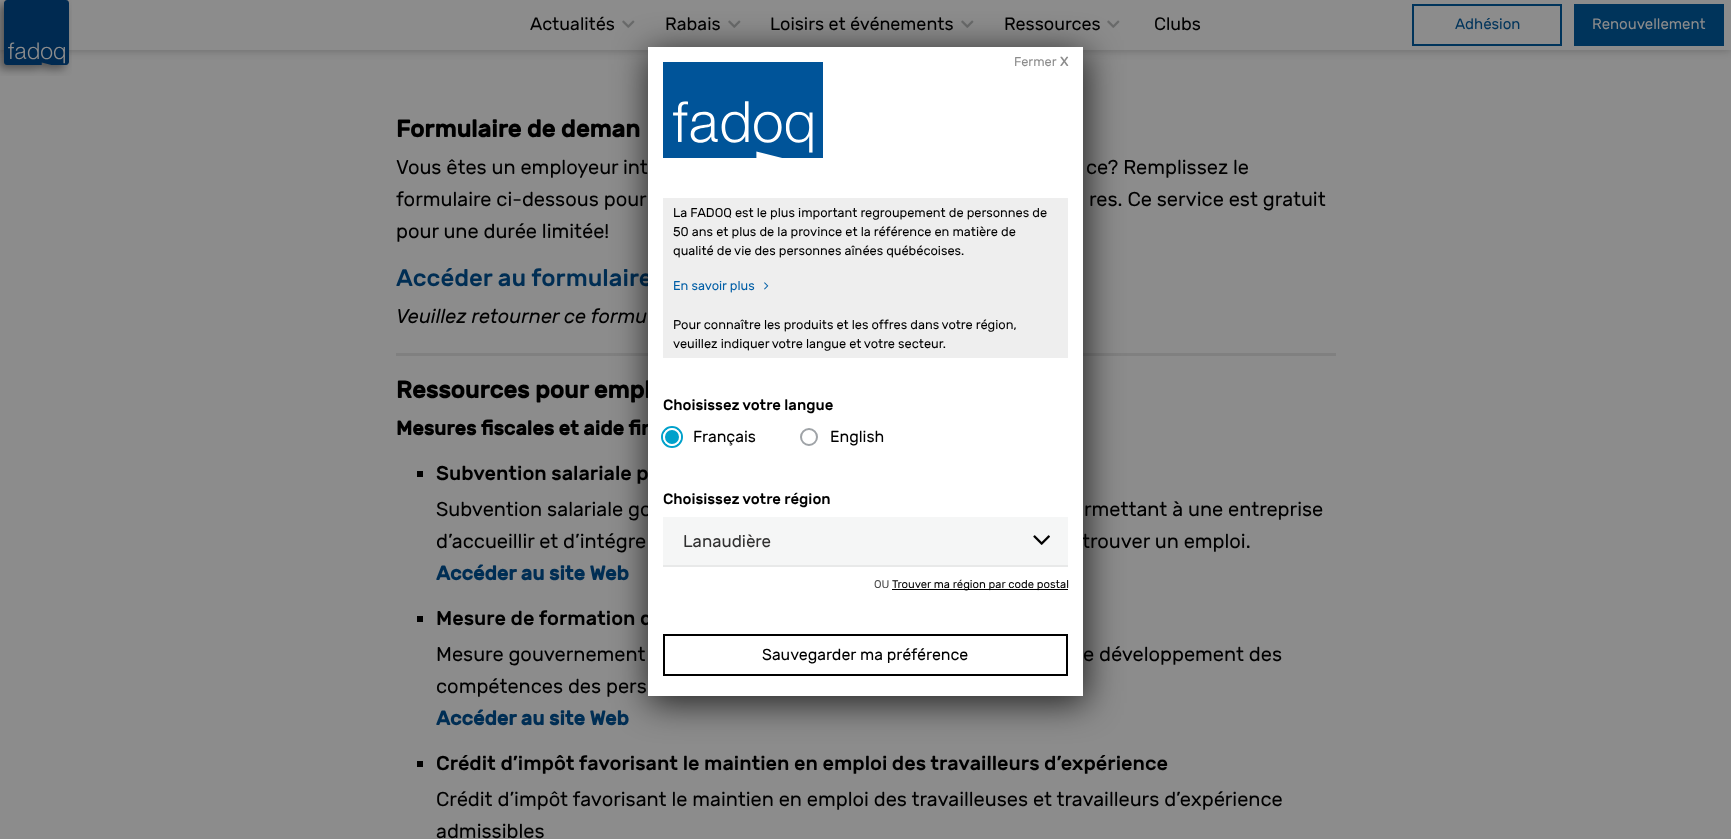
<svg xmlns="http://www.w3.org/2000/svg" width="1731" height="839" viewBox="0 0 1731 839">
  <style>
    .t1 { font: 18px Rubik; fill: #000; }
    .t2 { font: 15px Rubik; fill: #00345b; }
    .t3 { font: 15px Rubik; fill: #8c8c8c; }
    .t4 { font: bold 24px Rubik; fill: #000; }
    .t5 { font: 20px Rubik; fill: #000; }
    .t6 { font: 500 24px Rubik; fill: #002e54; }
    .t7 { font: italic 20px Rubik; fill: #000; }
    .t8 { font: bold 20px Rubik; fill: #000; }
    .t9 { font: 500 20px Rubik; fill: #000; }
    .t10 { font: bold 20px Rubik; fill: #002e54; }
    .t11 { font: 12.8px Rubik; fill: #8c8c8c; }
    .t12 { font: bold 12.8px 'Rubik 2'; fill: #8c8c8c; }
    .t13 { font: 12.8px Rubik; fill: #000; }
    .t14 { font: 12.8px Rubik; fill: #005ea6; }
    .t15 { font: 500 15px Rubik; fill: #000; }
    .t16 { font: 16px Rubik; fill: #000; }
    .t17 { font: 17px Rubik; fill: #313131; }
    .t18 { font: 11.25px Rubik; fill: #4a4a4a; }
    .t19 { font: 11.25px Rubik; fill: #000; }
  </style>
  <rect width="100%" height="100%" fill="#8c8c8c"/>
  <rect x="0" y="0" width="1731" height="50" fill="#00000040" filter="blur(5px)"/>
  <rect x="0" y="0" width="1731" height="50" fill="#8c8c8c"/>
  <image x="0" y="0" width="72" height="76" href="images/1.png"/>
  <text x="530" y="30" class="t1">Actualités</text>
  <image x="622" y="20" width="13" height="8" href="images/2.png"/>
  <text x="665" y="30" class="t1">Rabais</text>
  <image x="728" y="20" width="13" height="8" href="images/2.png"/>
  <text x="770" y="30" class="t1">Loisirs et événements</text>
  <image x="961" y="20" width="13" height="8" href="images/2.png"/>
  <text x="1004" y="30" class="t1">Ressources</text>
  <image x="1107" y="20" width="13" height="8" href="images/2.png"/>
  <text x="1154" y="30" class="t1">Clubs</text>
  <rect x="1413" y="5" width="148" height="40" fill="none" stroke="#00345b" stroke-width="2"/>
  <text x="1455" y="29" class="t2">Adhésion</text>
  <rect x="1574" y="4" width="150" height="42" fill="#00345b"/>
  <text x="1592" y="29" class="t3">Renouvellement</text>
  <text x="396" y="137" class="t4">Formulaire de deman</text>
  <text x="396" y="174" class="t5">Vous êtes un employeur int</text>
  <text x="1086" y="174" class="t5">ce? Remplissez le</text>
  <text x="396" y="206" class="t5">formulaire ci-dessous pour</text>
  <text x="1089" y="206" class="t5">res. Ce service est gratuit</text>
  <text x="396" y="238" class="t5">pour une durée limitée!</text>
  <text x="396" y="286" class="t6">Accéder au formulaire</text>
  <text x="396" y="323" class="t7">Veuillez retourner ce formu</text>
  <rect x="396" y="353" width="940" height="3" fill="#808080"/>
  <text x="396" y="398" class="t4">Ressources pour empl</text>
  <text x="396" y="435" class="t8">Mesures fiscales et aide fin</text>
  <rect x="417" y="471" width="6" height="6" fill="#000"/>
  <text x="436" y="480" class="t9">Subvention salariale p</text>
  <text x="436" y="516" class="t5">Subvention salariale go</text>
  <text x="1084" y="516" class="t5">rmettant à une entreprise</text>
  <text x="436" y="548" class="t5">d’accueillir et d’intégre</text>
  <text x="1082" y="548" class="t5">trouver un emploi.</text>
  <text x="436" y="580" class="t10">Accéder au site Web</text>
  <rect x="417" y="616" width="6" height="6" fill="#000"/>
  <text x="436" y="625" class="t9">Mesure de formation d</text>
  <text x="436" y="661" class="t5">Mesure gouvernement</text>
  <text x="1083" y="661" class="t5">e développement des</text>
  <text x="436" y="693" class="t5">compétences des pers</text>
  <text x="436" y="725" class="t10">Accéder au site Web</text>
  <rect x="417" y="761" width="6" height="6" fill="#000"/>
  <text x="436" y="770" class="t9">Crédit d’impôt favorisant le maintien en emploi des travailleurs d’expérience</text>
  <text x="436" y="806" class="t5">Crédit d’impôt favorisant le maintien en emploi des travailleuses et travailleurs d’expérience</text>
  <text x="436" y="838" class="t5">admissibles</text>
  <rect x="649" y="52" width="437" height="651" fill="#000000bf" filter="blur(17.5px)"/>
  <rect x="648" y="47" width="435" height="649" fill="#fff"/>
  <image x="663" y="62" width="160" height="96" href="images/3.png"/>
  <text x="1014" y="66" class="t11">Fermer</text>
  <text x="1060" y="66" class="t12">X</text>
  <rect x="663" y="198" width="405" height="160" fill="#eee"/>
  <text x="673" y="217" class="t13">La FADOQ est le plus important regroupement de personnes de</text>
  <text x="673" y="236" class="t13">50 ans et plus de la province et la référence en matière de</text>
  <text x="673" y="255" class="t13">qualité de vie des personnes aînées québécoises.</text>
  <text x="673" y="290" class="t14">En savoir plus</text>
  <image x="764" y="282" width="5" height="8" href="images/4.png"/>
  <text x="673" y="329" class="t13">Pour connaître les produits et les offres dans votre région,</text>
  <text x="673" y="348" class="t13">veuillez indiquer votre langue et votre secteur.</text>
  <text x="663" y="410" class="t15">Choisissez votre langue</text>
  <circle cx="672" cy="437" r="10" fill="none" stroke="#00a1cb" stroke-width="2"/>
  <circle cx="672" cy="437" r="8" fill="#00a1cb" stroke="#fff" stroke-width="2"/>
  <text x="693" y="442" class="t16">Français</text>
  <circle cx="809" cy="437" r="8" fill="none" stroke="#9fa3a7" stroke-width="2"/>
  <text x="830" y="442" class="t16">English</text>
  <text x="663" y="504" class="t15">Choisissez votre région</text>
  <rect x="663" y="517" width="405" height="48" fill="#f5f6f6"/>
  <rect x="663" y="565" width="405" height="2" fill="#e8e9e9"/>
  <text x="683" y="547" class="t17">Lanaudière</text>
  <image x="1033" y="535" width="17" height="10" href="images/5.png"/>
  <text x="874" y="588" class="t18">OU</text>
  <rect x="892" y="589" width="176" height="1" fill="#000"/>
  <text x="892" y="588" class="t19">Trouver ma région par code postal</text>
  <rect x="664" y="635" width="403" height="40" fill="none" stroke="#000" stroke-width="2"/>
  <text x="762" y="660" class="t16">Sauvegarder ma préférence</text>
</svg>
